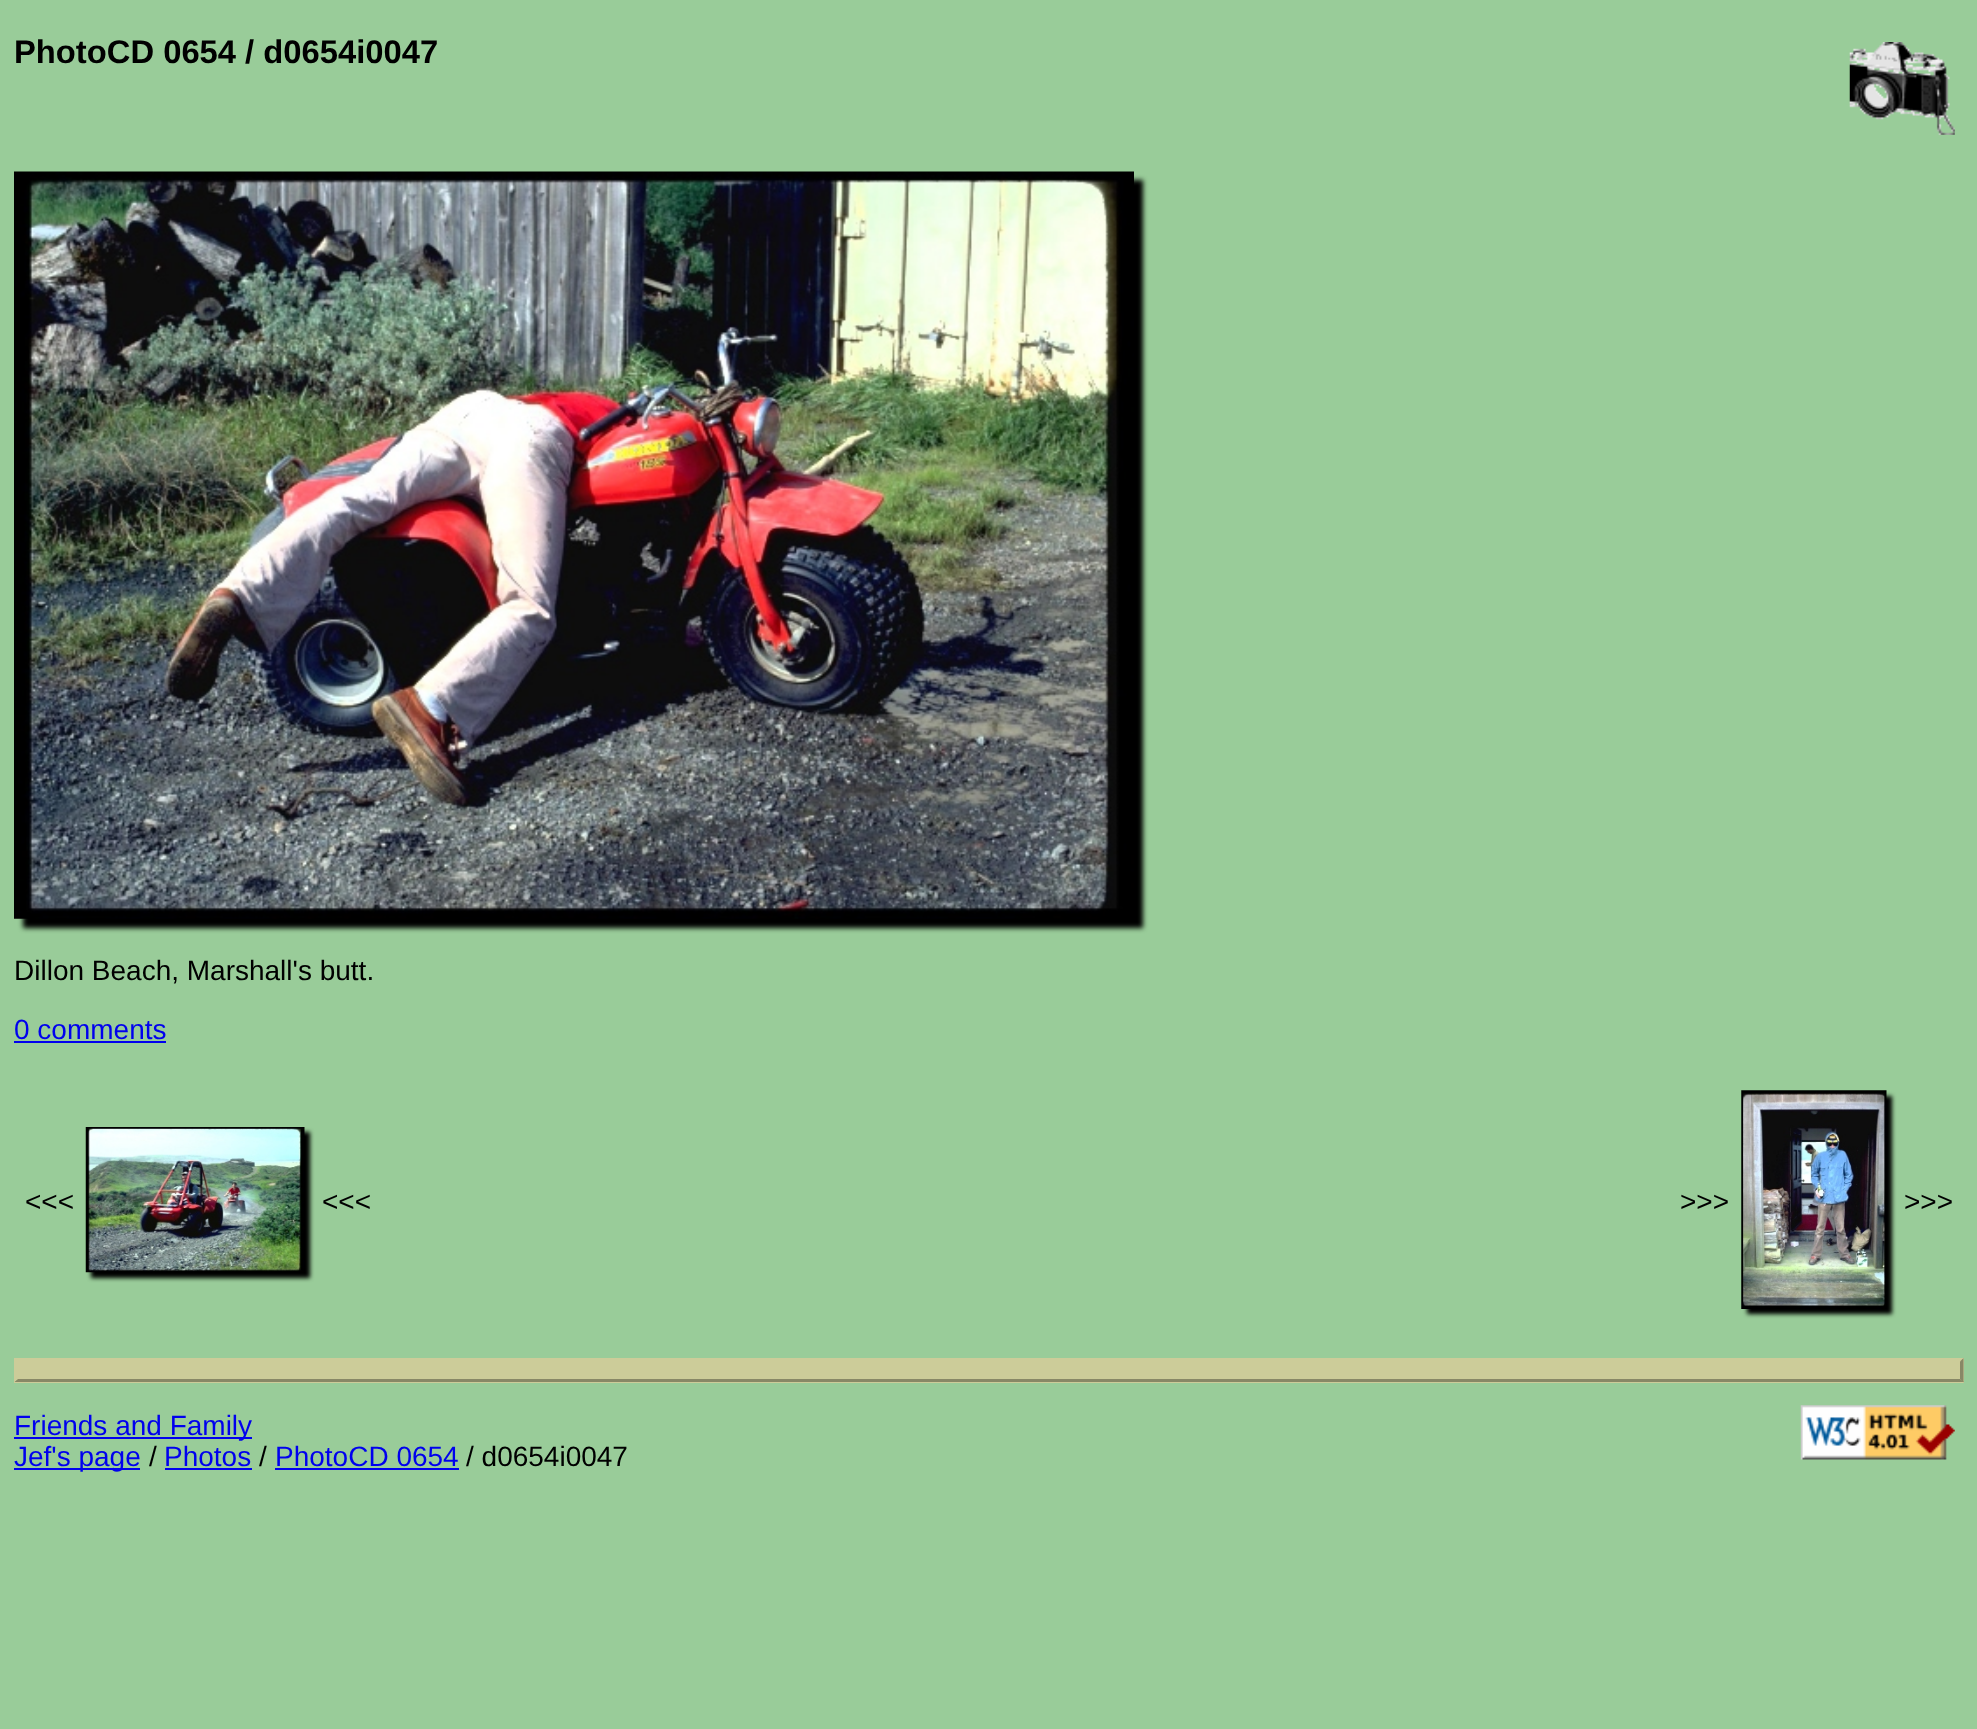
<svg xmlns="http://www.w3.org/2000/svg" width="1977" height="1729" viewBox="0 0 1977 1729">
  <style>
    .t1 { font: bold 32.75px Liberation Sans; fill: #000; }
    .t2 { font: 28px Liberation Sans; fill: #000; }
    .t3 { font: 28px Liberation Sans; fill: #00e; }
  </style>
  <rect width="100%" height="100%" fill="#9c9"/>
  <text x="14" y="63" class="t1">PhotoCD 0654 / d0654i0047</text>
  <image x="1849" y="42" width="106" height="93" href="images/1.png"/>
  <rect x="23" y="180" width="1120" height="748" fill="#000" filter="blur(2.5px)"/>
  <image x="14" y="171" width="1120" height="748" href="images/2.png"/>
  <text x="14" y="980" class="t2">Dillon Beach, Marshall's butt.</text>
  <text x="14" y="1039" class="t3">0 comments</text>
  <rect x="14" y="1041" width="152" height="2" fill="#00e"/>
  <text x="25" y="1211" class="t2">&lt;&lt;&lt;</text>
  <rect x="91" y="1132" width="219" height="146" fill="#000" filter="blur(2px)"/>
  <image x="85" y="1127" width="220" height="146" href="images/3.png"/>
  <text x="322" y="1211" class="t2">&lt;&lt;&lt;</text>
  <text x="1680" y="1211" class="t2">&gt;&gt;&gt;</text>
  <rect x="1747" y="1096" width="145" height="218" fill="#000" filter="blur(2px)"/>
  <image x="1741" y="1090" width="146" height="219" href="images/4.png"/>
  <text x="1904" y="1211" class="t2">&gt;&gt;&gt;</text>
  <rect x="14" y="1358" width="1950" height="25" fill="#cc9"/>
  <path d="M1963.5 1358V1382.5L1960 1379V1361.5Z" fill="#886"/>
  <path d="M1964 1382H14L18 1379H1960Z" fill="#886"/>
  <path d="M14 1382.5V1358L17.5 1361.5V1379Z" fill="#cc9"/>
  <rect x="14" y="1437" width="238" height="2" fill="#00e"/>
  <text x="14" y="1435" class="t3">Friends and Family</text>
  <rect x="14" y="1468" width="126" height="2" fill="#00e"/>
  <text x="14" y="1466" class="t3">Jef's page</text>
  <text x="149" y="1466" class="t2">/</text>
  <text x="164" y="1466" class="t3">Photos</text>
  <rect x="165" y="1468" width="87" height="2" fill="#00e"/>
  <text x="259" y="1466" class="t2">/</text>
  <text x="275" y="1466" class="t3">PhotoCD 0654</text>
  <rect x="275" y="1468" width="184" height="2" fill="#00e"/>
  <text x="466" y="1466" class="t2">/ d0654i0047</text>
  <image x="1800" y="1405" width="155" height="55" href="images/5.png"/>
</svg>
